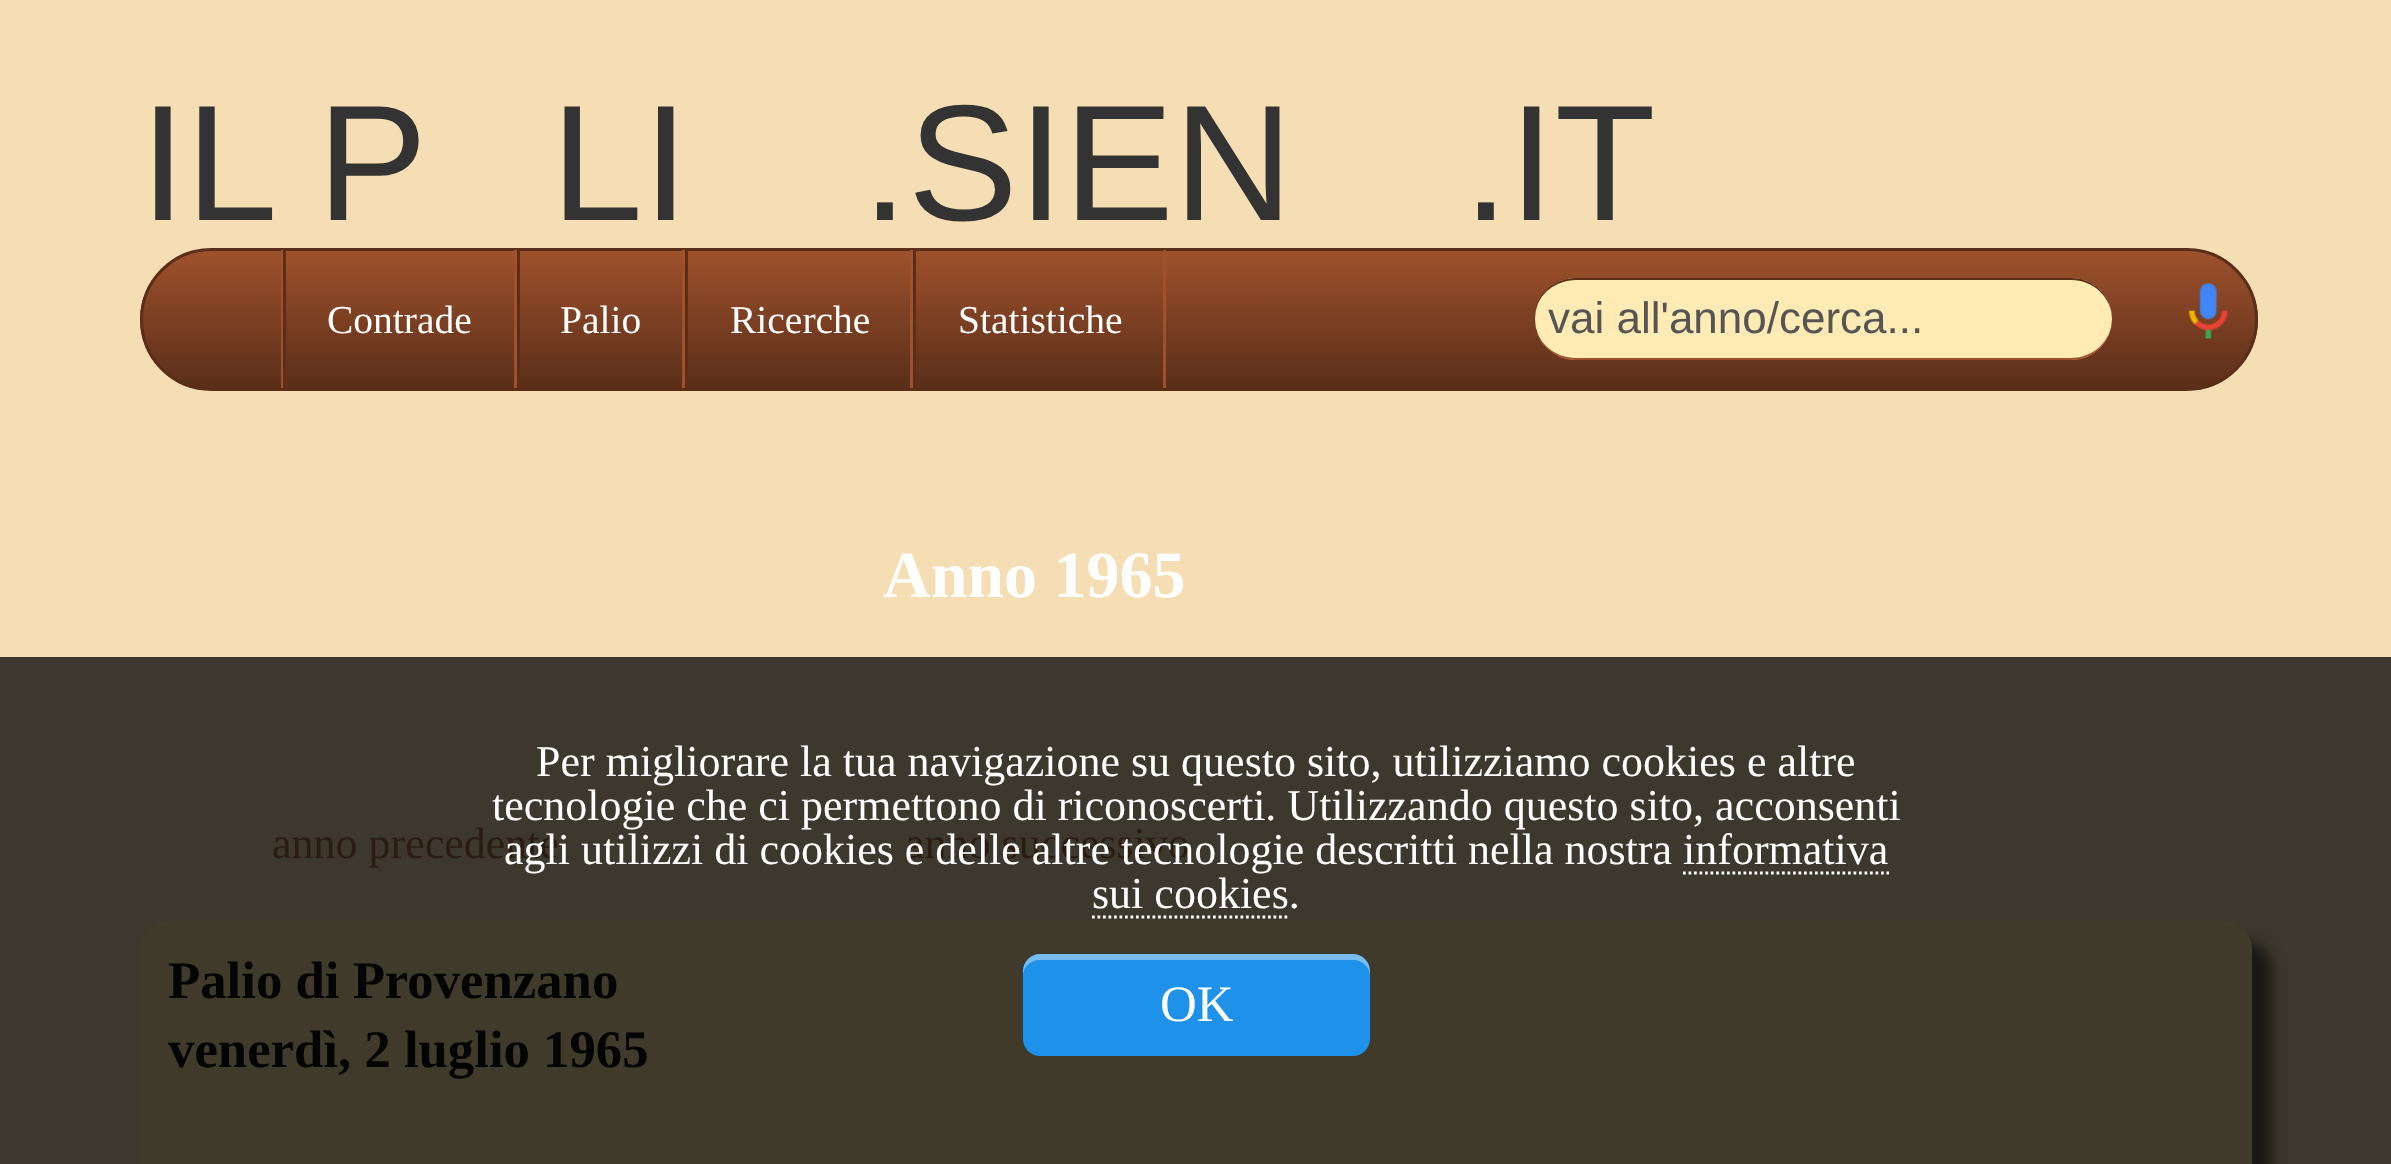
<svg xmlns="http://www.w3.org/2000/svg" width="2391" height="1164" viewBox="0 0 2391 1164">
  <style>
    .t1 { font: 165px Liberation Sans; fill: #333; }
    .t2 { font: 39.5px Liberation Serif; fill: #fff; }
    .t3 { font: 44px Liberation Sans; fill: #555; }
    .t4 { font: bold 66px Liberation Serif; fill: #fff; }
    .t5 { font: 44px Liberation Serif; fill: #2b1c12; }
    .t6 { font: bold 52.75px Liberation Serif; fill: #040404; }
    .t7 { font: 44px Liberation Serif; fill: #fff; }
    .t8 { font: 51px Liberation Serif; fill: #fff; }
  </style>
  <defs>
    <clipPath id="clip1"><rect x="140" y="248" width="2118" height="143" rx="71.5"/></clipPath>
    <linearGradient id="g1" gradientUnits="userSpaceOnUse" x1="1199" y1="250" x2="1199" y2="388"><stop offset="0" stop-color="#9f512c"/><stop offset="1" stop-color="#5a2e19"/></linearGradient>
  </defs>
  <rect width="100%" height="100%" fill="#f5deb3"/>
  <rect x="0" y="657" width="2391" height="507" fill="#3d382d"/>
  <text x="140" y="220" class="t1">IL P</text>
  <text x="551" y="220" class="t1">LI</text>
  <text x="862" y="220" class="t1">.SIEN</text>
  <text x="1463" y="220" class="t1">.IT</text>
  <g clip-path="url(#clip1)">
    <rect x="140" y="250" width="2118" height="138" fill="url(#g1)"/>
  </g>
  <rect x="141.5" y="249.5" width="2115" height="140" rx="70" fill="none" stroke="#5a2e19" stroke-width="3"/>
  <rect x="281" y="250" width="2" height="138" fill="#9f512c"/>
  <rect x="514" y="250" width="3" height="138" fill="#9f512c"/>
  <rect x="283" y="250" width="3" height="138" fill="#5a2e19"/>
  <text x="327" y="333" class="t2">Contrade</text>
  <rect x="682" y="250" width="3" height="138" fill="#9f512c"/>
  <rect x="517" y="250" width="3" height="138" fill="#5a2e19"/>
  <text x="560" y="333" class="t2">Palio</text>
  <rect x="910" y="250" width="3" height="138" fill="#9f512c"/>
  <rect x="685" y="250" width="3" height="138" fill="#5a2e19"/>
  <text x="730" y="333" class="t2">Ricerche</text>
  <rect x="1163" y="250" width="3" height="138" fill="#9f512c"/>
  <rect x="913" y="250" width="3" height="138" fill="#5a2e19"/>
  <text x="958" y="333" class="t2">Statistiche</text>
  <rect x="1535" y="278" width="577" height="82" rx="41" fill="#ffebb3"/>
  <path d="M1576 278H2071C2094 278 2112 296 2112 319C2112 298 2094 280 2071 280H1576C1555 280 1538 295 1534 313C1538 293 1555 278 1576 278Z" fill="#5a2e19"/>
  <path d="M1534 325C1538 343 1555 358 1576 358H2071C2094 358 2112 340 2112 319C2112 342 2094 360 2071 360H1576C1555 360 1538 345 1534 325Z" fill="#9f512c"/>
  <text x="1548" y="333" class="t3">vai all'anno/cerca...</text>
  <image x="2188" y="283" width="40" height="56" href="images/1.png"/>
  <text x="883" y="597" class="t4">Anno 1965</text>
  <text x="272" y="858" class="t5">anno precedente</text>
  <text x="905" y="858" class="t5">anno successivo</text>
  <rect x="160" y="941" width="2112" height="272" rx="28" fill="#0d0d0dbf" filter="blur(7px)"/>
  <rect x="140" y="921" width="2112" height="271" rx="28" fill="#3f3a2a"/>
  <text x="168" y="998" class="t6">Palio di Provenzano</text>
  <text x="168" y="1067" class="t6">venerdì, 2 luglio 1965</text>
  <text x="536" y="776" class="t7">Per migliorare la tua navigazione su questo sito, utilizziamo cookies e altre</text>
  <text x="492" y="820" class="t7">tecnologie che ci permettono di riconoscerti. Utilizzando questo sito, acconsenti</text>
  <text x="504" y="864" class="t7">agli utilizzi di cookies e delle altre tecnologie descritti nella nostra informativa</text>
  <text x="1092" y="908" class="t7">sui cookies.</text>
  <path d="M1683 873H1889" fill="none" stroke="#fff" stroke-width="2.8" stroke-dasharray="2.75 2.75"/>
  <path d="M1092 917H1290" fill="none" stroke="#fff" stroke-width="2.8" stroke-dasharray="2.75 2.75"/>
  <rect x="1023" y="954" width="347" height="102" rx="17" fill="#1e91ea"/>
  <path d="M1040 960H1353C1362 960 1370 967 1370 976V971C1370 962 1362 954 1353 954H1040C1031 954 1023 962 1023 971V976C1023 967 1030 960 1040 960Z" fill="#ffffff66"/>
  <text x="1160" y="1021" class="t8">OK</text>
</svg>
